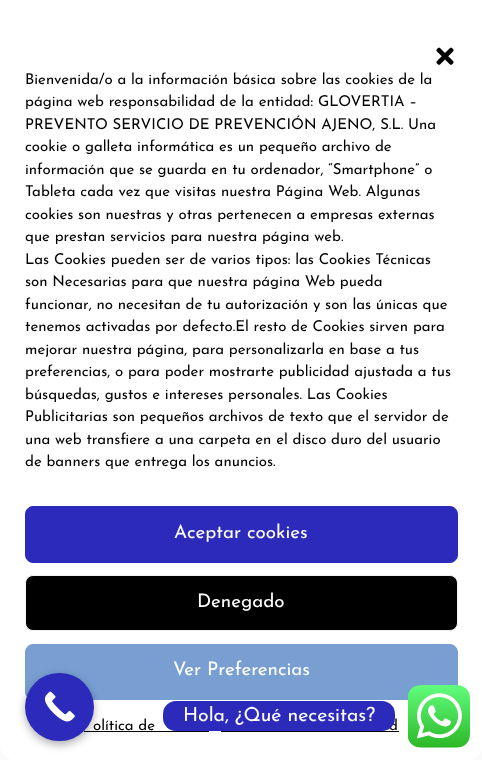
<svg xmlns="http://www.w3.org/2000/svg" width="482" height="760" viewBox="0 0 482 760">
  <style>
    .t1 { font: 100 15px Josefin Sans; fill: #000; }
    .t2 { font: 100 18.75px Josefin Sans; fill: #fff; }
    .t3 { font: 100 19.4px Josefin Sans; fill: #fff; }
  </style>
  <rect width="100%" height="100%" fill="#fafafa"/>
  <rect x="0" y="0" width="482" height="39" fill="#fff"/>
  <rect x="10" y="759" width="463" height="1" fill="#fff"/>
  <rect x="0" y="25" width="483" height="735" rx="15" fill="#fff"/>
  <image x="436" y="47" width="18" height="18" href="images/1.png"/>
  <text x="25" y="84" class="t1">Bienvenida/o a la información básica sobre las cookies de la</text>
  <text x="25" y="106" class="t1">página web responsabilidad de la entidad: GLOVERTIA –</text>
  <text x="25" y="129" class="t1">PREVENTO SERVICIO DE PREVENCIÓN AJENO, S.L. Una</text>
  <text x="25" y="151" class="t1">cookie o galleta informática es un pequeño archivo de</text>
  <text x="25" y="174" class="t1">información que se guarda en tu ordenador, “Smartphone” o</text>
  <text x="25" y="196" class="t1">Tableta cada vez que visitas nuestra Página Web. Algunas</text>
  <text x="25" y="219" class="t1">cookies son nuestras y otras pertenecen a empresas externas</text>
  <text x="25" y="241" class="t1">que prestan servicios para nuestra página web.</text>
  <text x="25" y="264" class="t1">Las Cookies pueden ser de varios tipos: las Cookies Técnicas</text>
  <text x="25" y="286" class="t1">son Necesarias para que nuestra página Web pueda</text>
  <text x="25" y="309" class="t1">funcionar, no necesitan de tu autorización y son las únicas que</text>
  <text x="25" y="331" class="t1">tenemos activadas por defecto.El resto de Cookies sirven para</text>
  <text x="25" y="354" class="t1">mejorar nuestra página, para personalizarla en base a tus</text>
  <text x="25" y="376" class="t1">preferencias, o para poder mostrarte publicidad ajustada a tus</text>
  <text x="25" y="399" class="t1">búsquedas, gustos e intereses personales. Las Cookies</text>
  <text x="25" y="421" class="t1">Publicitarias son pequeños archivos de texto que el servidor de</text>
  <text x="25" y="444" class="t1">una web transfiere a una carpeta en el disco duro del usuario</text>
  <text x="25" y="466" class="t1">de banners que entrega los anuncios.</text>
  <rect x="25.5" y="506.5" width="432" height="56" rx="7.5" fill="#2c2aba" stroke="#2c2aba"/>
  <text x="174" y="538" class="t2">Aceptar cookies</text>
  <rect x="25.5" y="575.5" width="432" height="55" rx="7.5" fill="#000" stroke="#f1f1f1"/>
  <text x="197" y="607" class="t2">Denegado</text>
  <rect x="25.5" y="644.5" width="432" height="55" rx="7.5" fill="#789ed2" stroke="#789ed2"/>
  <text x="173" y="675" class="t2">Ver Preferencias</text>
  <text x="93" y="730" class="t1">olítica de</text>
  <rect x="84" y="731" width="125" height="1" fill="#000"/>
  <text x="389" y="730" class="t1">d</text>
  <rect x="221" y="731" width="178" height="1" fill="#000"/>
  <rect x="25" y="676" width="69" height="69" rx="34.5" fill="#0000004d" filter="blur(4px)"/>
  <rect x="25" y="673" width="69" height="68" rx="34" fill="#2c2aba"/>
  <image x="44" y="691" width="31" height="31" href="images/2.png"/>
  <rect x="163" y="701" width="232" height="30" rx="13" fill="#2c2aba"/>
  <text x="183" y="721" class="t3">Hola, ¿Qué necesitas?</text>
  <image x="408" y="685" width="62" height="63" href="images/3.png"/>
</svg>
